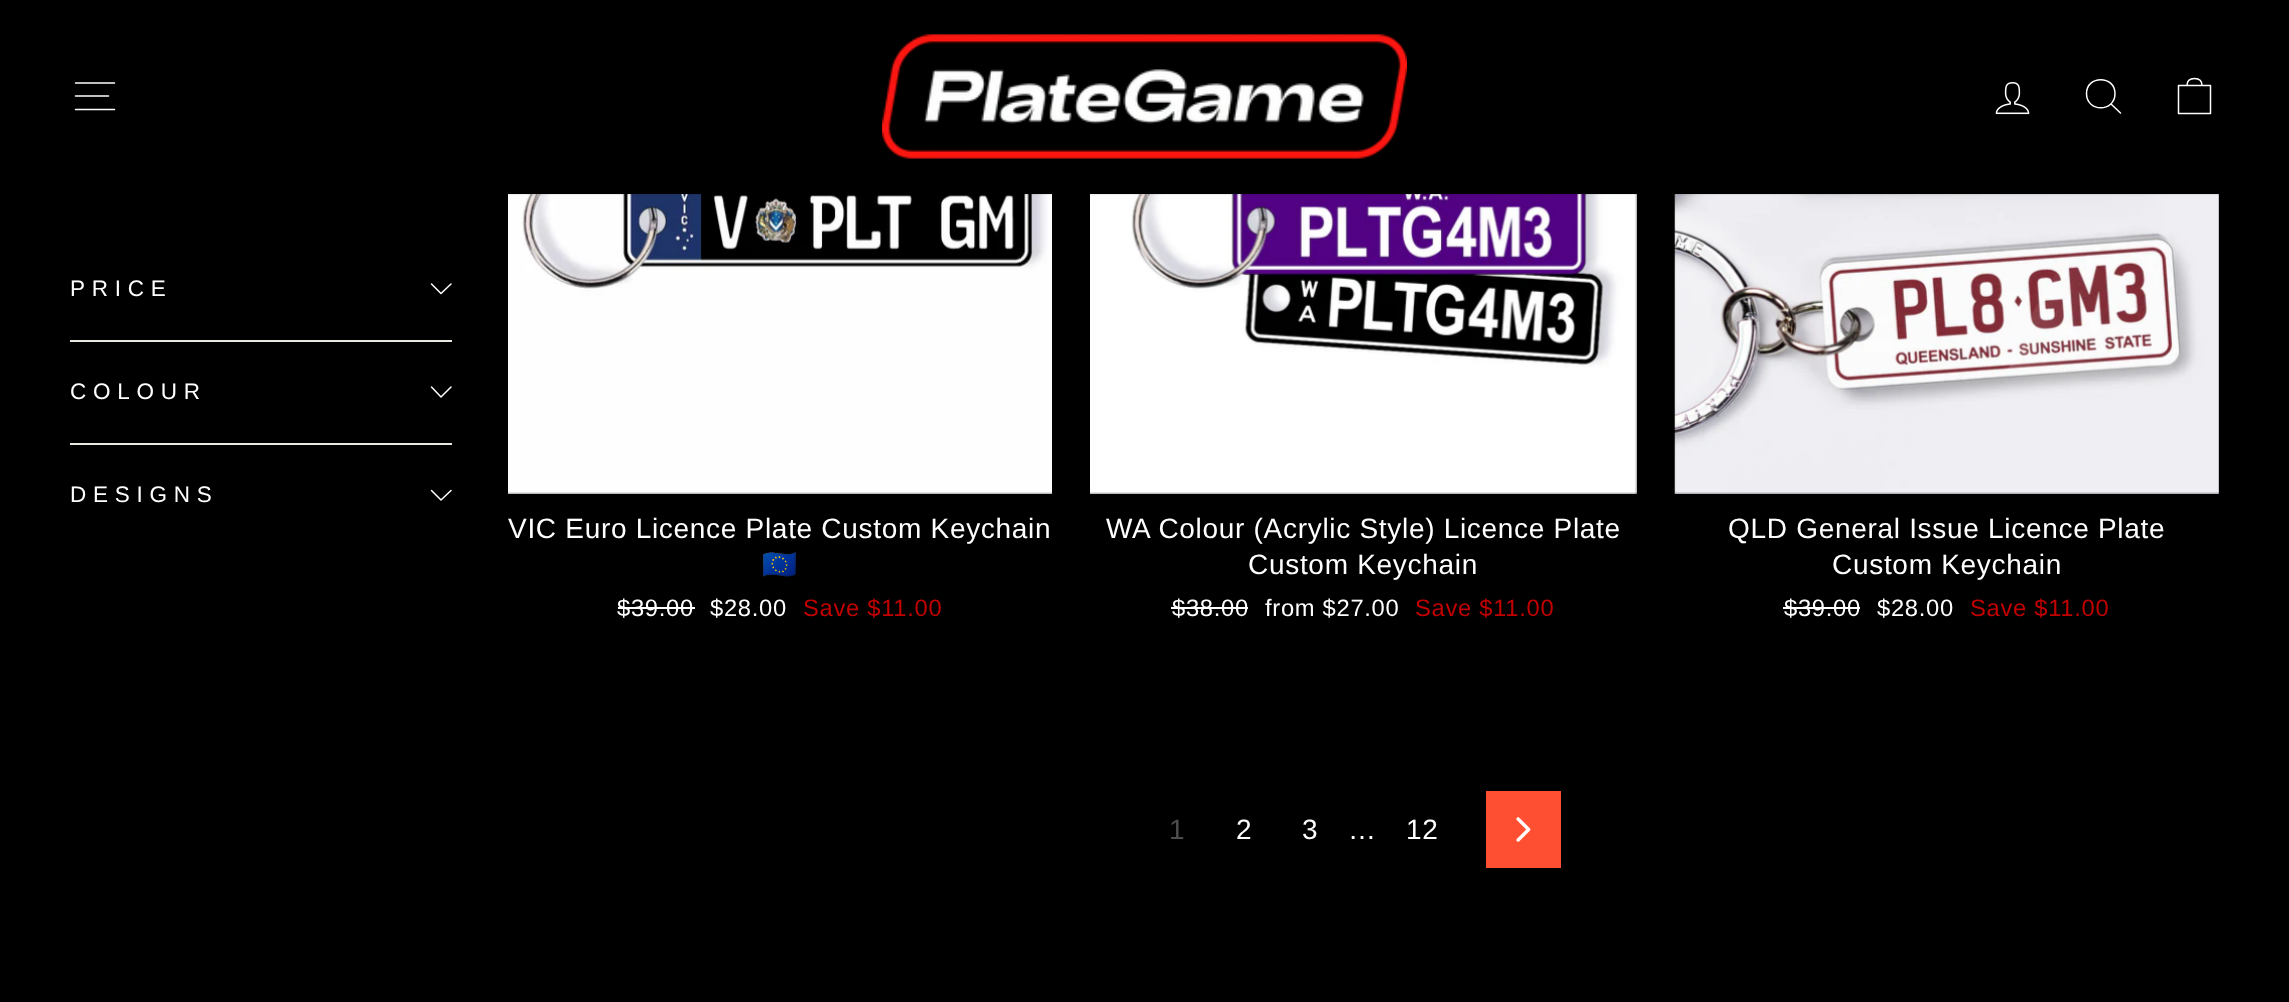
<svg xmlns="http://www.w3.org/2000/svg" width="2289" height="1002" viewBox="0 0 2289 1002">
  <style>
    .t1 { font: 22.5px Liberation Sans; letter-spacing: 6.75px; fill: #fff; }
    .t2 { font: 28px Liberation Sans; letter-spacing: 0.7px; fill: #fff; }
    .t3 { font: 28px Noto Color Emoji; letter-spacing: 0.7px; fill: #fff; }
    .t4 { font: 23.75px Liberation Sans; letter-spacing: 0.7px; fill: #fff; }
    .t5 { font: 23.75px Liberation Sans; letter-spacing: 0.7px; fill: #c20000; }
    .t6 { font: 28px Liberation Sans; letter-spacing: 0.7px; fill: #4d4d4d; }
  </style>
  <rect width="100%" height="100%" fill="#000"/>
  <image x="508" y="194" width="544" height="300" href="images/3.png"/>
  <image x="1090" y="194" width="547" height="300" href="images/4.png"/>
  <image x="1674" y="194" width="545" height="300" href="images/5.png"/>
  <rect x="0" y="0" width="2289" height="194" fill="#00000033" filter="blur(1px)"/>
  <path d="M75.5 83H114.5M75.5 96H108.5M75.5 109.5H114.5" fill="none" stroke="#fff" stroke-width="1.5" stroke-linecap="round" stroke-linejoin="round"/>
  <image x="882" y="34" width="525" height="125" href="images/1.png"/>
  <image x="1995" y="82" width="35" height="33" href="images/2.png"/>
  <path d="M2115 93.5C2115 112.5 2086.5 112.5 2086.5 93.5C2086.5 75 2115 75 2115 93.5ZM2120.5 113L2111 104" fill="none" stroke="#fff" stroke-width="1.5" stroke-linecap="round" stroke-linejoin="round"/>
  <path d="M2178.5 85.5H2210.5V113.5H2178.5ZM2187 85.5C2187 80 2190.5 78.5 2194.5 78.5C2198.5 78.5 2202 80 2202 85.5" fill="none" stroke="#fff" stroke-width="1.5" stroke-linecap="round" stroke-linejoin="round"/>
  <text x="70" y="296" class="t1">PRICE</text>
  <path d="M431.5 284L441 293.5L451 284" fill="none" stroke="#fff" stroke-width="1.5" stroke-linecap="round" stroke-linejoin="round"/>
  <rect x="70" y="340" width="382" height="2" fill="#e8e8e1"/>
  <text x="70" y="399" class="t1">COLOUR</text>
  <path d="M431.5 387L441 397L451 387" fill="none" stroke="#fff" stroke-width="1.5" stroke-linecap="round" stroke-linejoin="round"/>
  <rect x="70" y="443" width="382" height="2" fill="#e8e8e1"/>
  <text x="70" y="502" class="t1">DESIGNS</text>
  <path d="M431.5 490.5L441 500L451 490.5" fill="none" stroke="#fff" stroke-width="1.5" stroke-linecap="round" stroke-linejoin="round"/>
  <text x="508" y="538" class="t2">VIC Euro Licence Plate Custom Keychain</text>
  <text x="762" y="574" class="t3">🇪🇺</text>
  <text x="617" y="616" class="t4">$39.00</text>
  <rect x="618" y="607" width="77" height="2" fill="#fff"/>
  <text x="710" y="616" class="t4">$28.00</text>
  <text x="803" y="616" class="t5">Save $11.00</text>
  <text x="1106" y="538" class="t2">WA Colour (Acrylic Style) Licence Plate</text>
  <text x="1248" y="574" class="t2">Custom Keychain</text>
  <text x="1172" y="616" class="t4">$38.00</text>
  <rect x="1171" y="607" width="77" height="2" fill="#fff"/>
  <text x="1265" y="616" class="t4">from $27.00</text>
  <text x="1415" y="616" class="t5">Save $11.00</text>
  <text x="1728" y="538" class="t2">QLD General Issue Licence Plate</text>
  <text x="1832" y="574" class="t2">Custom Keychain</text>
  <text x="1784" y="616" class="t4">$39.00</text>
  <rect x="1783" y="607" width="77" height="2" fill="#fff"/>
  <text x="1877" y="616" class="t4">$28.00</text>
  <text x="1970" y="616" class="t5">Save $11.00</text>
  <text x="1169" y="839" class="t6">1</text>
  <text x="1236" y="839" class="t2">2</text>
  <text x="1302" y="839" class="t2">3</text>
  <text x="1348" y="839" class="t2">…</text>
  <text x="1406" y="839" class="t2">12</text>
  <rect x="1486" y="791" width="75" height="77" fill="#ff4f33"/>
  <image x="1516" y="817" width="15" height="25" href="images/6.png"/>
</svg>
